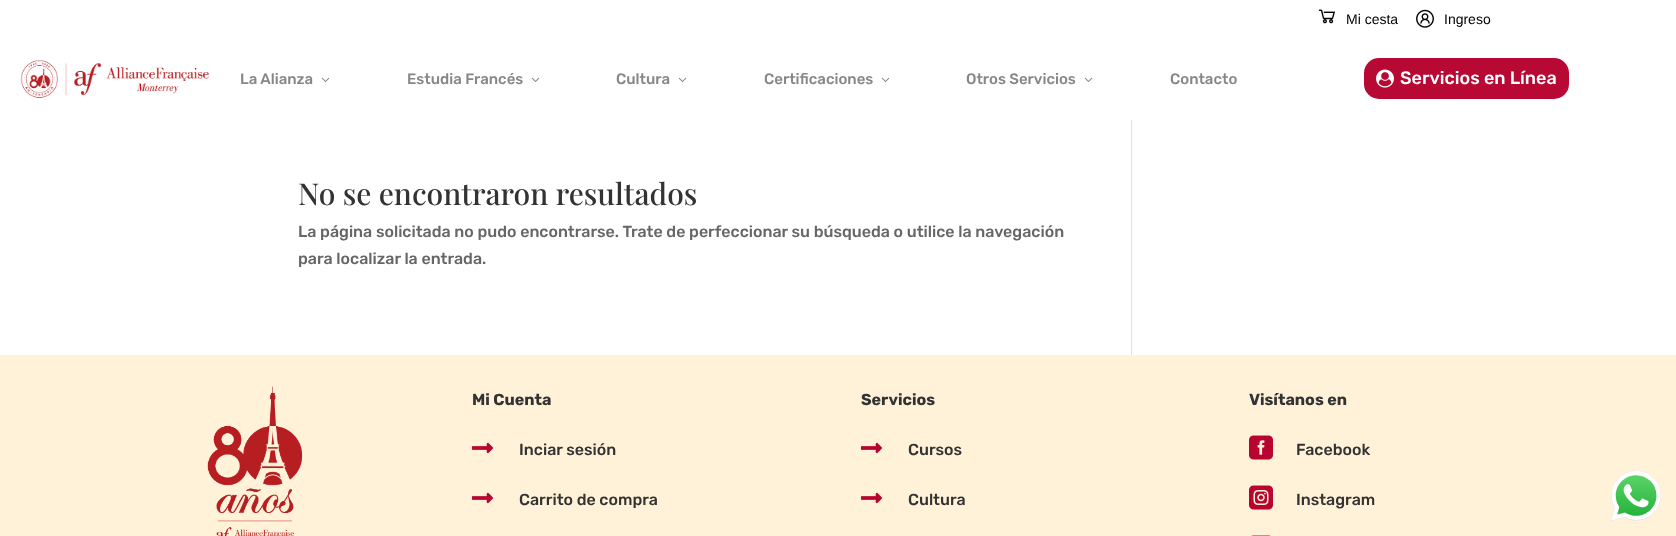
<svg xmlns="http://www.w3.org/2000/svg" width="1676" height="536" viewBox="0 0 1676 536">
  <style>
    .t1 { font: 14px Liberation Sans; fill: #000; }
    .t2 { font: 500 15px Rubik; fill: #87868a; }
    .t3 { font: 500 18px Rubik; fill: #fff; }
    .t4 { font: 500 30px Playfair Display; fill: #333; }
    .t5 { font: 500 16px Rubik; fill: #666; }
    .t6 { font: bold 16px Rubik; fill: #333; }
    .t7 { font: 500 16px Rubik; fill: #333; }
  </style>
  <rect width="100%" height="100%" fill="#fff"/>
  <image x="1318" y="9" width="17" height="15" href="images/1.png"/>
  <text x="1346" y="24" class="t1">Mi cesta</text>
  <image x="1416" y="9" width="18" height="19" href="images/2.png"/>
  <text x="1444" y="24" class="t1">Ingreso</text>
  <image x="20" y="60" width="190" height="38" href="images/3.png"/>
  <text x="240" y="84" class="t2">La Alianza</text>
  <image x="321" y="77" width="9" height="5" href="images/4.png"/>
  <text x="407" y="84" class="t2">Estudia Francés</text>
  <image x="531" y="77" width="9" height="5" href="images/4.png"/>
  <text x="616" y="84" class="t2">Cultura</text>
  <image x="678" y="77" width="9" height="5" href="images/4.png"/>
  <text x="764" y="84" class="t2">Certificaciones</text>
  <image x="881" y="77" width="9" height="5" href="images/4.png"/>
  <text x="966" y="84" class="t2">Otros Servicios</text>
  <image x="1084" y="77" width="9" height="5" href="images/4.png"/>
  <text x="1170" y="84" class="t2">Contacto</text>
  <rect x="1364" y="58" width="205" height="41" rx="15" fill="#b80934"/>
  <image x="1376" y="69" width="18" height="19" href="images/5.png"/>
  <text x="1400" y="84" class="t3">Servicios en Línea</text>
  <text x="298" y="205" class="t4">No se encontraron resultados</text>
  <text x="298" y="237" class="t5">La página solicitada no pudo encontrarse. Trate de perfeccionar su búsqueda o utilice la navegación</text>
  <text x="298" y="264" class="t5">para localizar la entrada.</text>
  <rect x="1131" y="120" width="1" height="235" fill="#e2e2e2"/>
  <rect x="0" y="355" width="1676" height="181" fill="#fff2d8"/>
  <image x="207" y="386" width="96" height="150" href="images/6.png"/>
  <text x="472" y="405" class="t6">Mi Cuenta</text>
  <image x="472" y="442" width="21" height="12" href="images/7.png"/>
  <text x="519" y="455" class="t7">Inciar sesión</text>
  <image x="472" y="492" width="21" height="12" href="images/7.png"/>
  <text x="519" y="505" class="t7">Carrito de compra</text>
  <text x="861" y="405" class="t6">Servicios</text>
  <image x="861" y="442" width="21" height="12" href="images/7.png"/>
  <text x="908" y="455" class="t7">Cursos</text>
  <image x="861" y="492" width="21" height="12" href="images/7.png"/>
  <text x="908" y="505" class="t7">Cultura</text>
  <text x="1249" y="405" class="t6">Visítanos en</text>
  <image x="1249" y="435" width="24" height="25" href="images/8.png"/>
  <text x="1296" y="455" class="t7">Facebook</text>
  <image x="1249" y="485" width="24" height="25" href="images/9.png"/>
  <text x="1296" y="505" class="t7">Instagram</text>
  <image x="1251" y="535" width="20" height="1" href="images/10.png"/>
  <image x="1611" y="471" width="50" height="50" href="images/11.png"/>
</svg>
